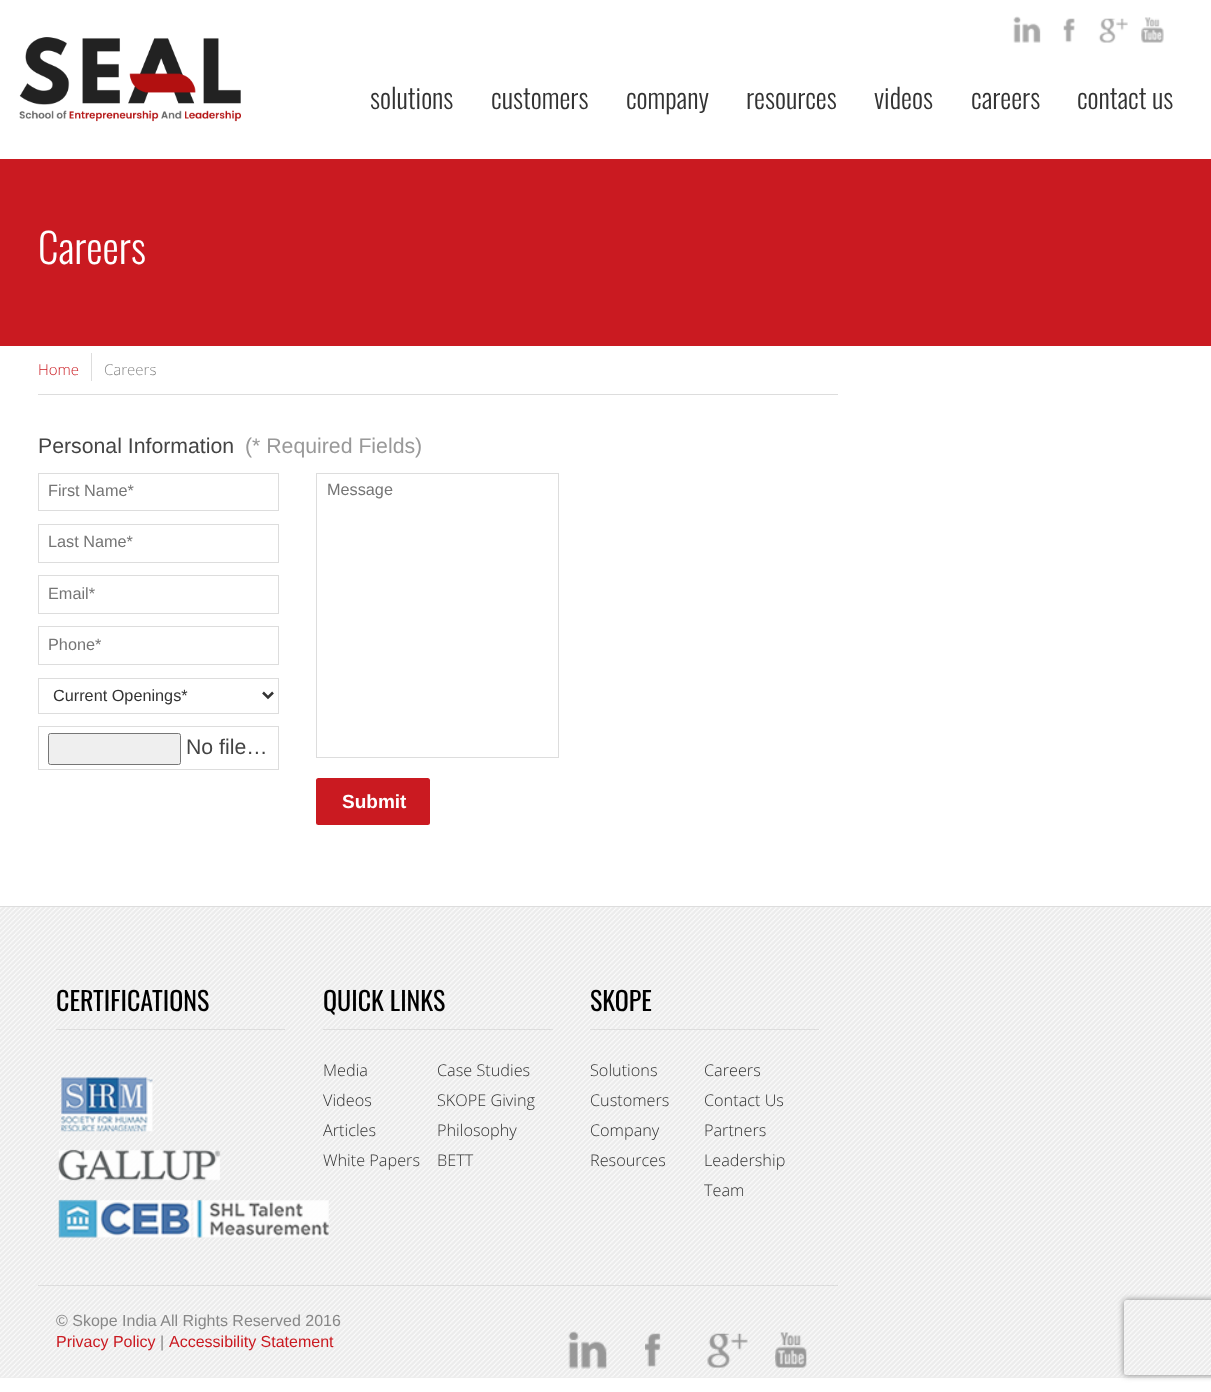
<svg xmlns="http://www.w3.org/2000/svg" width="1211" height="1392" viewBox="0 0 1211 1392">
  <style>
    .t1 { font: 300 27.5px Oswald; fill: #333; }
    .t2 { font: 300 41px Oswald; fill: #fff; }
    .t3 { font: 300 15px Open Sans; fill: #ca1a21; }
    .t4 { font: 300 15px Open Sans; fill: #888; }
    .t5 { font: 21.25px Liberation Sans; fill: #444; }
    .t6 { font: 21.25px Liberation Sans; fill: #999; }
    .t7 { font: 16.25px Liberation Sans; fill: #757575; }
    .t8 { font: 16.25px Liberation Sans; fill: #333; }
    .t9 { font: bold 19px Liberation Sans; fill: #fff; }
    .t10 { font: 26px Oswald; fill: #000; }
    .t11 { font: 300 16.25px Open Sans; fill: #333; }
    .t12 { font: 16px Liberation Sans; fill: #888; }
    .t13 { font: 16px Liberation Sans; fill: #ca1a21; }
  </style>
  <defs>
    <clipPath id="clip1"><path d="M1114 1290H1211V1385H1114ZM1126.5 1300H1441.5C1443 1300 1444 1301 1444 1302.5V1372.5C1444 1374 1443 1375 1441.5 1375H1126.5C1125 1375 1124 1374 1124 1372.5V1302.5C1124 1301 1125 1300 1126.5 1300Z" clip-rule="evenodd"/></clipPath>
  </defs>
  <rect width="100%" height="100%" fill="#fff"/>
  <image x="19" y="37" width="222" height="85" href="images/1.png"/>
  <image x="1013" y="16" width="28" height="27" href="images/2.png"/>
  <image x="1063" y="18" width="12" height="25" href="images/3.png"/>
  <image x="1098" y="18" width="30" height="25" href="images/4.png"/>
  <image x="1141" y="17" width="23" height="26" href="images/5.png"/>
  <text x="370" y="109" class="t1">solutions</text>
  <text x="491" y="109" class="t1">customers</text>
  <text x="626" y="109" class="t1">company</text>
  <text x="746" y="109" class="t1">resources</text>
  <text x="874" y="109" class="t1">videos</text>
  <text x="971" y="109" class="t1">careers</text>
  <text x="1077" y="109" class="t1">contact us</text>
  <rect x="0" y="159" width="1211" height="187" fill="#ca1a21"/>
  <text x="38" y="264" class="t2">Careers</text>
  <rect x="38" y="394" width="800" height="1" fill="#ddd"/>
  <rect x="91" y="353" width="1" height="28" fill="#ddd"/>
  <text x="38" y="375" class="t3">Home</text>
  <text x="104" y="375" class="t4">Careers</text>
  <text x="38" y="453" class="t5">Personal Information</text>
  <text x="245" y="453" class="t6">(* Required Fields)</text>
  <rect x="38.5" y="473.5" width="240" height="37" fill="none" stroke="#ddd"/>
  <text x="48" y="496" class="t7">First Name*</text>
  <rect x="38.5" y="524.5" width="240" height="38" fill="none" stroke="#ddd"/>
  <text x="48" y="547" class="t7">Last Name*</text>
  <rect x="38.5" y="575.5" width="240" height="38" fill="none" stroke="#ddd"/>
  <text x="48" y="599" class="t7">Email*</text>
  <rect x="38.5" y="626.5" width="240" height="38" fill="none" stroke="#ddd"/>
  <text x="48" y="650" class="t7">Phone*</text>
  <rect x="38.5" y="678.5" width="240" height="35" fill="none" stroke="#ddd"/>
  <path d="M263 692.5L268 697.5L273 692.5" fill="none" stroke="#333" stroke-width="2.5"/>
  <text x="53" y="701" class="t8">Current Openings*</text>
  <rect x="38.5" y="726.5" width="240" height="43" fill="none" stroke="#ddd"/>
  <rect x="48.5" y="733.5" width="132" height="31" rx="2" fill="#efefef" stroke="#767676"/>
  <text x="186" y="754" class="t5">No file…</text>
  <rect x="316.5" y="473.5" width="242" height="284" fill="none" stroke="#ddd"/>
  <text x="327" y="495" class="t7">Message</text>
  <rect x="316" y="778" width="114" height="47" rx="2.5" fill="#ca1a21"/>
  <text x="342" y="808" class="t9">Submit</text>
  <rect x="0" y="907" width="1211" height="471" fill="#ececec"/>
  <image x="0" y="907" width="1211" height="471" href="images/6.png"/>
  <rect x="0" y="906" width="1211" height="1" fill="#ddd"/>
  <rect x="56" y="1029" width="229" height="1" fill="#ddd"/>
  <text x="56" y="1011" class="t10">CERTIFICATIONS</text>
  <image x="61" y="1077" width="92" height="55" href="images/7.png"/>
  <image x="58" y="1149" width="163" height="32" href="images/8.png"/>
  <image x="58" y="1199" width="271" height="39" href="images/9.png"/>
  <rect x="323" y="1029" width="230" height="1" fill="#ddd"/>
  <text x="323" y="1011" class="t10">QUICK LINKS</text>
  <text x="323" y="1076" class="t11">Media</text>
  <text x="437" y="1076" class="t11">Case Studies</text>
  <text x="323" y="1106" class="t11">Videos</text>
  <text x="437" y="1106" class="t11">SKOPE Giving</text>
  <text x="323" y="1136" class="t11">Articles</text>
  <text x="437" y="1136" class="t11">Philosophy</text>
  <text x="323" y="1166" class="t11">White Papers</text>
  <text x="437" y="1166" class="t11">BETT</text>
  <rect x="590" y="1029" width="229" height="1" fill="#ddd"/>
  <text x="590" y="1011" class="t10">SKOPE</text>
  <text x="590" y="1076" class="t11">Solutions</text>
  <text x="704" y="1076" class="t11">Careers</text>
  <text x="590" y="1106" class="t11">Customers</text>
  <text x="704" y="1106" class="t11">Contact Us</text>
  <text x="590" y="1136" class="t11">Company</text>
  <text x="704" y="1136" class="t11">Partners</text>
  <text x="590" y="1166" class="t11">Resources</text>
  <text x="704" y="1166" class="t11">Leadership</text>
  <text x="704" y="1196" class="t11">Team</text>
  <rect x="38" y="1285" width="800" height="1" fill="#ddd"/>
  <text x="56" y="1326" class="t12">© Skope India All Rights Reserved 2016</text>
  <text x="56" y="1347" class="t13">Privacy Policy</text>
  <text x="160" y="1347" class="t12">|</text>
  <text x="169" y="1347" class="t13">Accessibility Statement</text>
  <image x="568" y="1331" width="39" height="38" href="images/10.png"/>
  <image x="645" y="1333" width="16" height="34" href="images/11.png"/>
  <image x="707" y="1333" width="41" height="35" href="images/12.png"/>
  <image x="775" y="1332" width="32" height="36" href="images/13.png"/>
  <g clip-path="url(#clip1)">
    <rect x="1124" y="1300" width="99" height="75" rx="2.5" fill="#808080" filter="blur(3px)"/>
  </g>
</svg>
